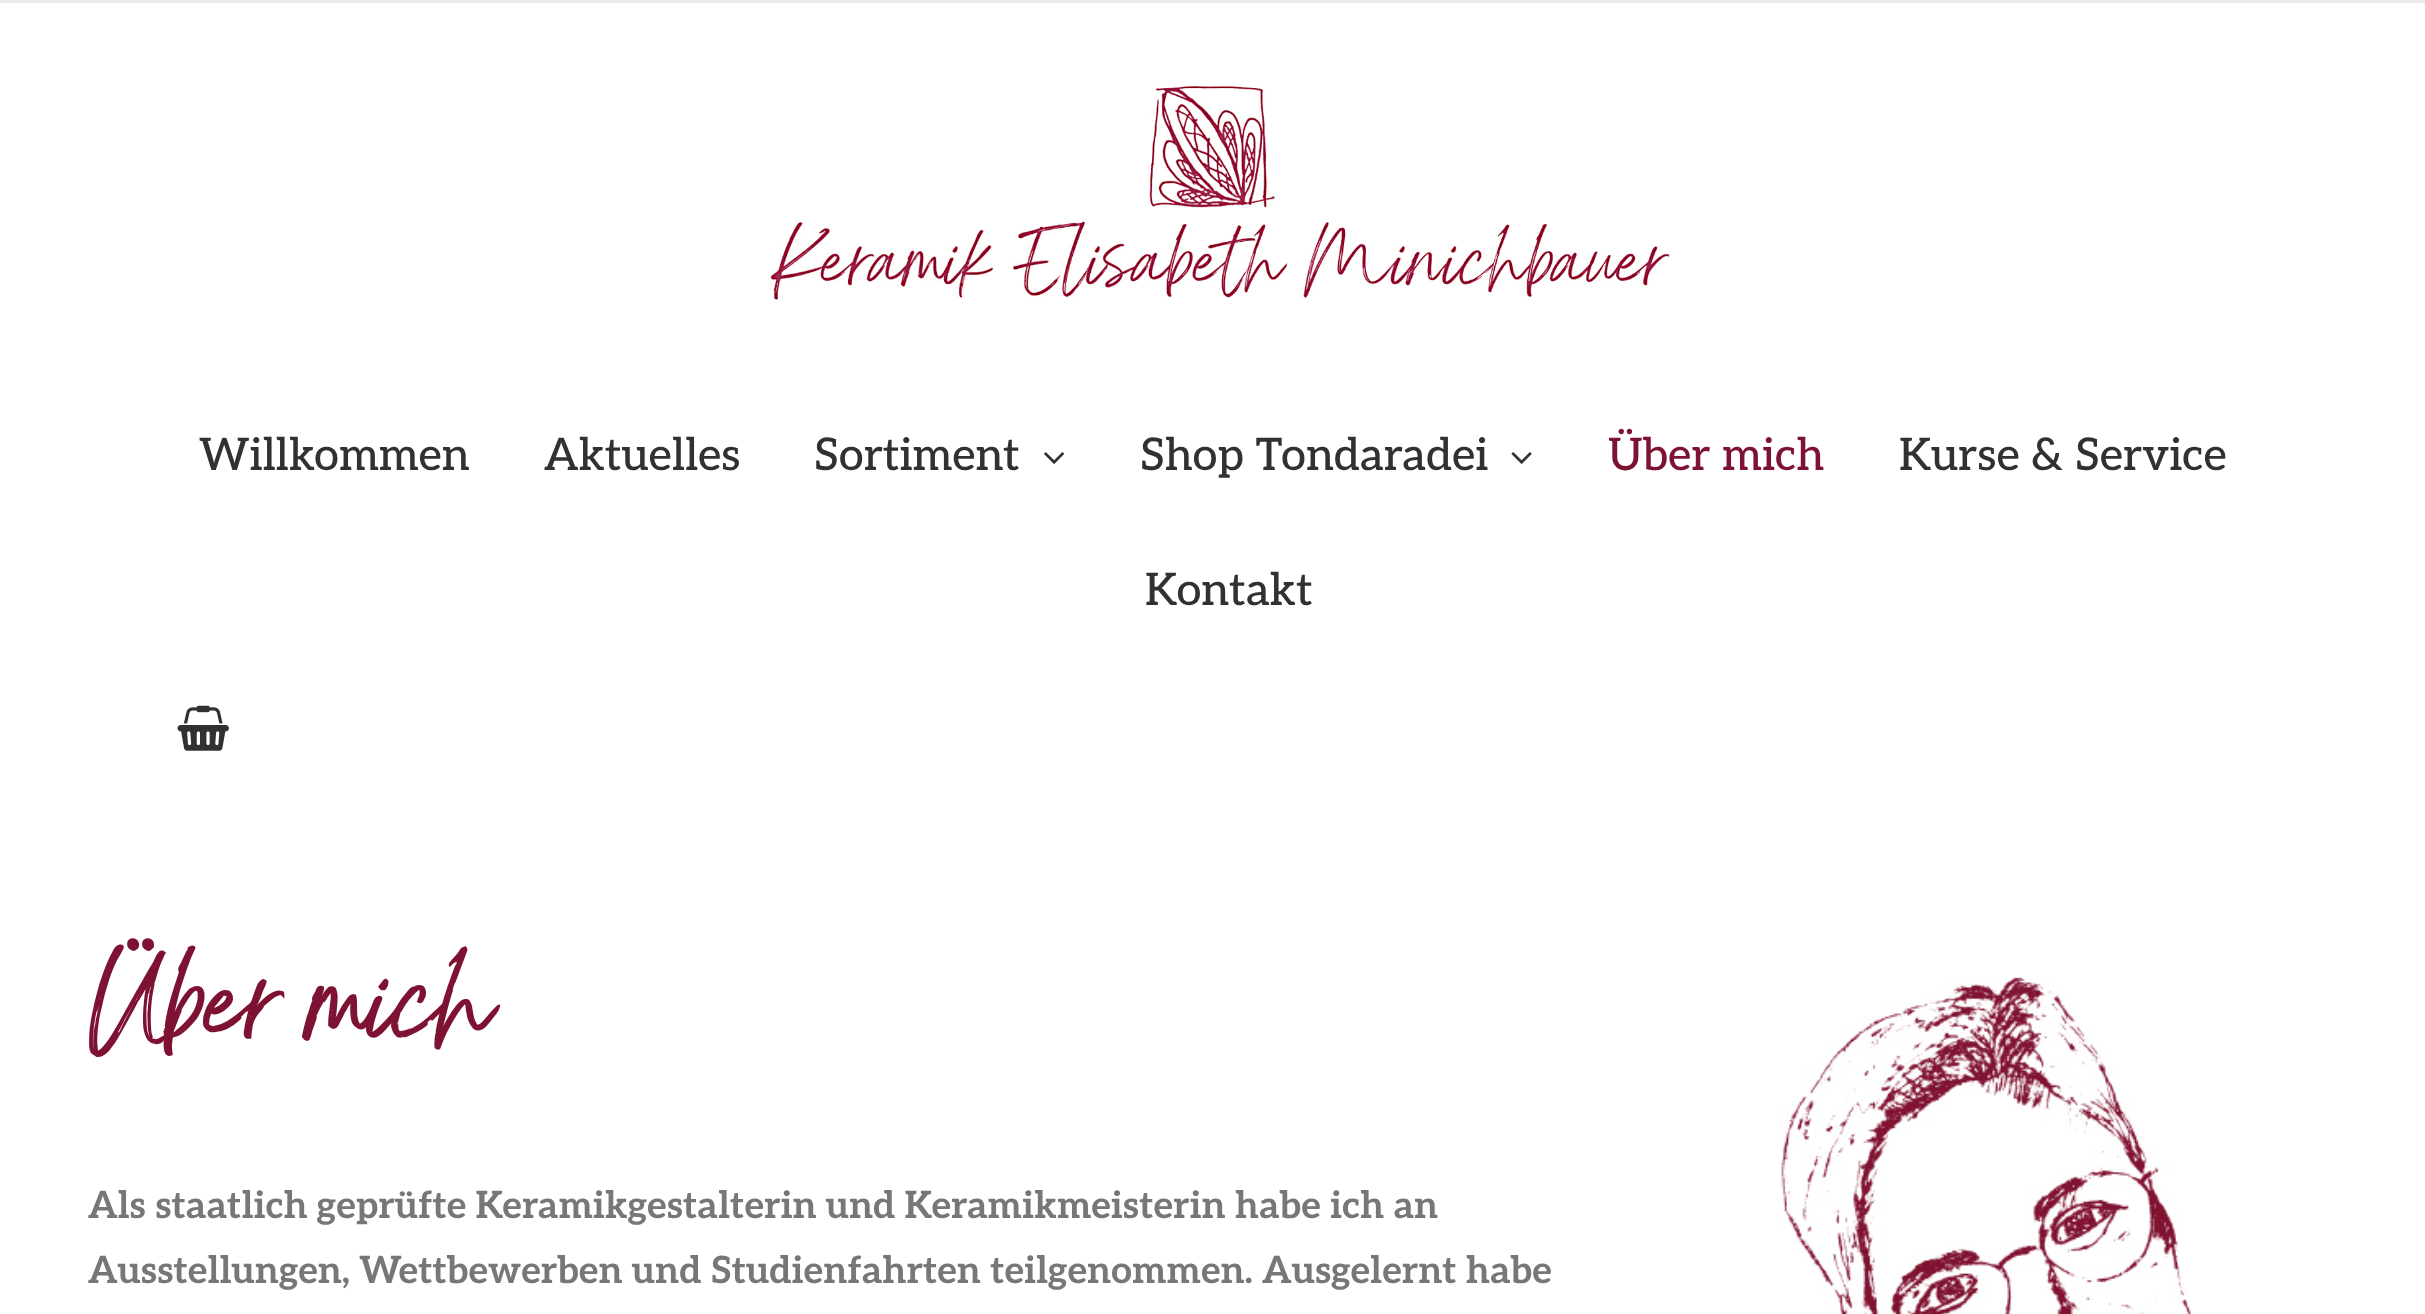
<svg xmlns="http://www.w3.org/2000/svg" width="2425" height="1314" viewBox="0 0 2425 1314">
  <style>
    .t1 { font: 500 45px Aleo; fill: #303133; }
    .t2 { font: 500 45px Aleo; fill: #7e1232; }
    .t3 { font: bold 87.5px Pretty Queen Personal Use; fill: #7e1232; }
    .t4 { font: bold 37.5px Aleo; fill: #777; }
  </style>
  <rect width="100%" height="100%" fill="#fff"/>
  <rect x="0" y="0" width="2425" height="3" fill="#eaeaea"/>
  <image x="769" y="85" width="901" height="215" href="images/1.png"/>
  <text x="199" y="470" class="t1">Willkommen</text>
  <text x="544" y="470" class="t1">Aktuelles</text>
  <text x="814" y="470" class="t1">Sortiment</text>
  <image x="1044" y="452" width="21" height="12" href="images/2.png"/>
  <text x="1140" y="470" class="t1">Shop Tondaradei</text>
  <image x="1511" y="452" width="21" height="12" href="images/3.png"/>
  <text x="1608" y="470" class="t2">Über mich</text>
  <text x="1899" y="470" class="t1">Kurse &amp; Service</text>
  <text x="1145" y="605" class="t1">Kontakt</text>
  <image x="177" y="705" width="52" height="46" href="images/4.png"/>
  <text x="88" y="1055" class="t3">Über mich</text>
  <text x="88" y="1218" class="t4">Als staatlich geprüfte Keramikgestalterin und Keramikmeisterin habe ich an</text>
  <text x="88" y="1283" class="t4">Ausstellungen, Wettbewerben und Studienfahrten teilgenommen. Ausgelernt habe</text>
  <image x="1781" y="977" width="410" height="337" href="images/5.png"/>
</svg>
